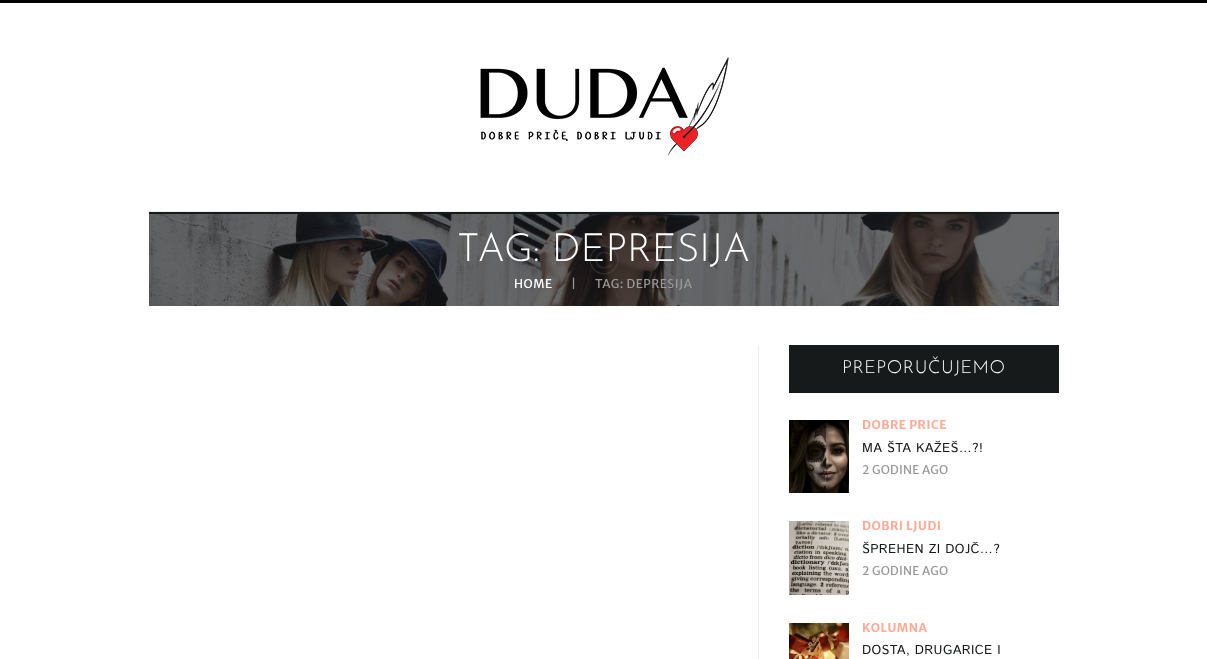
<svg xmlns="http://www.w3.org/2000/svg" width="1207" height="659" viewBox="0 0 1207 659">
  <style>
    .t1 { font: 300 39px Josefin Sans; fill: #fff; }
    .t2 { font: 12px Merriweather Sans; letter-spacing: 0.5px; fill: #fff; }
    .t3 { font: 12px Merriweather Sans; letter-spacing: 0.5px; fill: #999; }
    .t4 { font: 300 18px Josefin Sans; letter-spacing: 0.5px; fill: #fff; }
    .t5 { font: bold 12px Merriweather Sans; letter-spacing: 0.5px; fill: #ffaa96; }
    .t6 { font: 13px Istok Web; letter-spacing: 0.4px; fill: #171a1b; }
    .t7 { font: 12px Merriweather Sans; letter-spacing: 0.25px; fill: #999; }
  </style>
  <defs>
    <clipPath id="clip1"><rect x="862" y="420" width="197" height="58"/></clipPath>
  </defs>
  <rect width="100%" height="100%" fill="#fff"/>
  <rect x="0" y="0" width="1207" height="3" fill="#000"/>
  <image x="480" y="57" width="249" height="99" href="images/1.png"/>
  <rect x="149" y="211" width="910" height="1" fill="#ededed"/>
  <rect x="149" y="212" width="910" height="2" fill="#171a1b"/>
  <image x="149" y="214" width="910" height="92" href="images/2.png"/>
  <text x="457" y="261" class="t1">TAG: DEPRESIJA</text>
  <text x="514" y="288" class="t2">HOME</text>
  <text x="571" y="288" class="t3">|</text>
  <text x="595" y="288" class="t3">TAG: DEPRESIJA</text>
  <rect x="758" y="345" width="1" height="314" fill="#ededed"/>
  <rect x="789" y="345" width="270" height="48" fill="#171a1b"/>
  <text x="842" y="373" class="t4">PREPORUČUJEMO</text>
  <image x="789" y="420" width="60" height="73" href="images/3.png"/>
  <g clip-path="url(#clip1)">
    <text x="862" y="429" class="t5">DOBRE PRIČE</text>
  </g>
  <text x="862" y="452" class="t6">MA ŠTA KAŽEŠ…?!</text>
  <text x="862" y="474" class="t7">2 GODINE AGO</text>
  <image x="789" y="521" width="60" height="74" href="images/4.png"/>
  <text x="862" y="530" class="t5">DOBRI LJUDI</text>
  <text x="862" y="553" class="t6">ŠPREHEN ZI DOJČ…?</text>
  <text x="862" y="575" class="t7">2 GODINE AGO</text>
  <image x="789" y="623" width="60" height="36" href="images/5.png"/>
  <text x="862" y="632" class="t5">KOLUMNA</text>
  <text x="862" y="654" class="t6">DOSTA, DRUGARICE I</text>
</svg>
